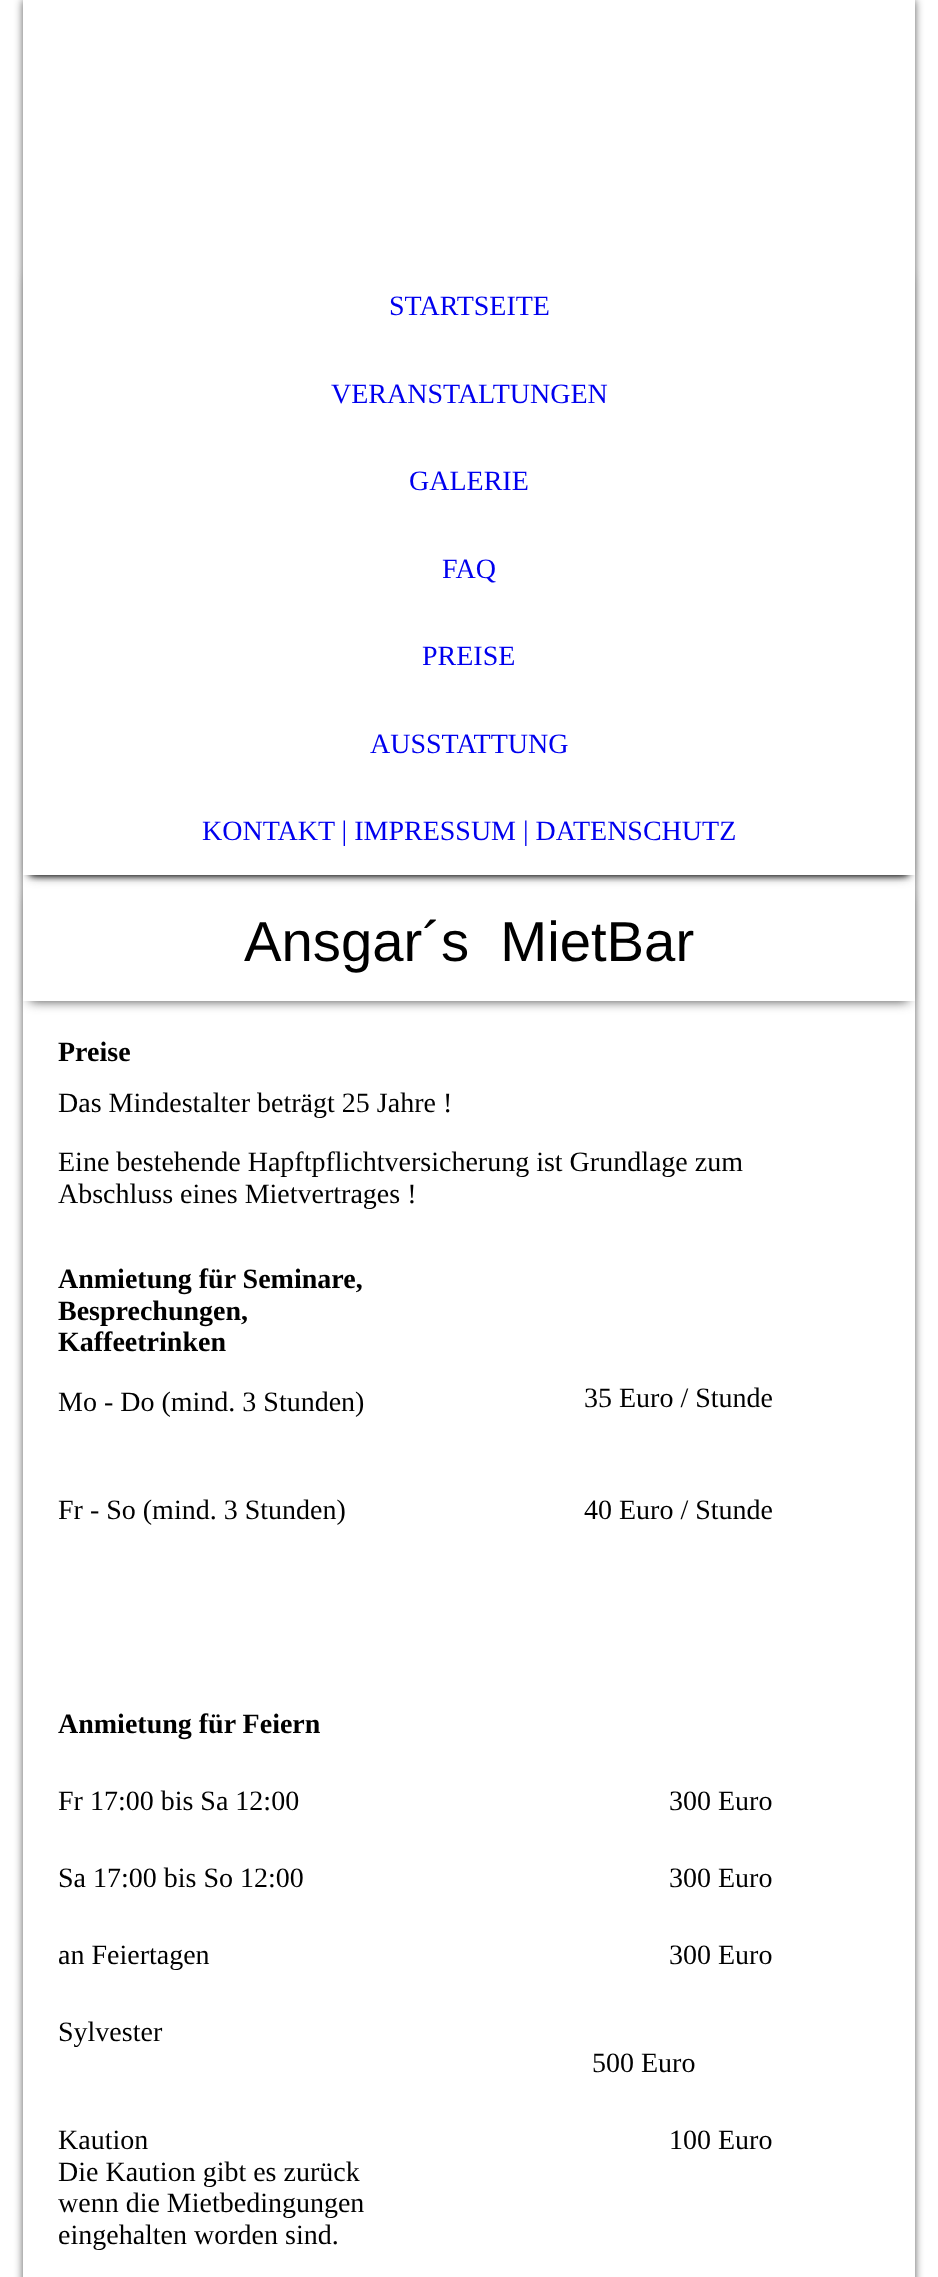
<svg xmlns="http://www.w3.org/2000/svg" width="938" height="2277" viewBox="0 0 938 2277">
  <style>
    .t1 { font: 28px Liberation Serif; fill: #00e; }
    .t2 { font: 56.25px Liberation Sans; fill: #000; }
    .t3 { font: bold 28px Liberation Serif; fill: #000; }
    .t4 { font: 28px Liberation Serif; fill: #000; }
  </style>
  <defs>
    <clipPath id="clip1"><path d="M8 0H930V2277H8ZM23 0H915V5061H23Z" clip-rule="evenodd"/></clipPath>
    <clipPath id="clip2"><path d="M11 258H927V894H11ZM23 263H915V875H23Z" clip-rule="evenodd"/></clipPath>
    <clipPath id="clip3"><rect x="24" y="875" width="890" height="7"/></clipPath>
    <clipPath id="clip4"><path d="M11 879H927V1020H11ZM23 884H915V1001H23Z" clip-rule="evenodd"/></clipPath>
  </defs>
  <rect width="100%" height="100%" fill="#fff"/>
  <g clip-path="url(#clip1)">
    <rect x="23" y="0" width="892" height="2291" fill="#141414b3" filter="blur(4.5px)"/>
  </g>
  <g clip-path="url(#clip2)">
    <rect x="30" y="277" width="878" height="598" fill="#444" filter="blur(6px)"/>
  </g>
  <text x="389" y="315" class="t1">STARTSEITE</text>
  <text x="331" y="403" class="t1">VERANSTALTUNGEN</text>
  <text x="409" y="490" class="t1">GALERIE</text>
  <text x="442" y="578" class="t1">FAQ</text>
  <text x="422" y="665" class="t1">PREISE</text>
  <text x="370" y="753" class="t1">AUSSTATTUNG</text>
  <g clip-path="url(#clip3)">
    <rect x="30" y="802" width="878" height="73" fill="#000" filter="blur(3.5px)"/>
  </g>
  <text x="202" y="840" class="t1">KONTAKT | IMPRESSUM | DATENSCHUTZ</text>
  <g clip-path="url(#clip4)">
    <rect x="30" y="898" width="878" height="103" fill="#444" filter="blur(6px)"/>
  </g>
  <text x="244" y="961" class="t2" xml:space="preserve">Ansgar´s  MietBar</text>
  <text x="58" y="1061" class="t3">Preise</text>
  <text x="58" y="1112" class="t4">Das Mindestalter beträgt 25 Jahre !</text>
  <text x="58" y="1171" class="t4">Eine bestehende Hapftpflichtversicherung ist Grundlage zum</text>
  <text x="58" y="1203" class="t4">Abschluss eines Mietvertrages !</text>
  <text x="58" y="1288" class="t3">Anmietung für Seminare,</text>
  <text x="58" y="1320" class="t3">Besprechungen,</text>
  <text x="58" y="1351" class="t3">Kaffeetrinken</text>
  <text x="58" y="1411" class="t4">Mo - Do (mind. 3 Stunden)</text>
  <text x="584" y="1407" class="t4">35 Euro / Stunde</text>
  <text x="58" y="1519" class="t4">Fr - So (mind. 3 Stunden)</text>
  <text x="584" y="1519" class="t4">40 Euro / Stunde</text>
  <text x="58" y="1733" class="t3">Anmietung für Feiern</text>
  <text x="58" y="1810" class="t4">Fr 17:00 bis Sa 12:00</text>
  <text x="669" y="1810" class="t4">300 Euro</text>
  <text x="58" y="1887" class="t4">Sa 17:00 bis So 12:00</text>
  <text x="669" y="1887" class="t4">300 Euro</text>
  <text x="58" y="1964" class="t4">an Feiertagen</text>
  <text x="669" y="1964" class="t4">300 Euro</text>
  <text x="58" y="2041" class="t4">Sylvester</text>
  <text x="592" y="2072" class="t4">500 Euro</text>
  <text x="58" y="2149" class="t4">Kaution</text>
  <text x="58" y="2181" class="t4">Die Kaution gibt es zurück</text>
  <text x="58" y="2212" class="t4">wenn die Mietbedingungen</text>
  <text x="58" y="2244" class="t4">eingehalten worden sind.</text>
  <text x="669" y="2149" class="t4">100 Euro</text>
</svg>
